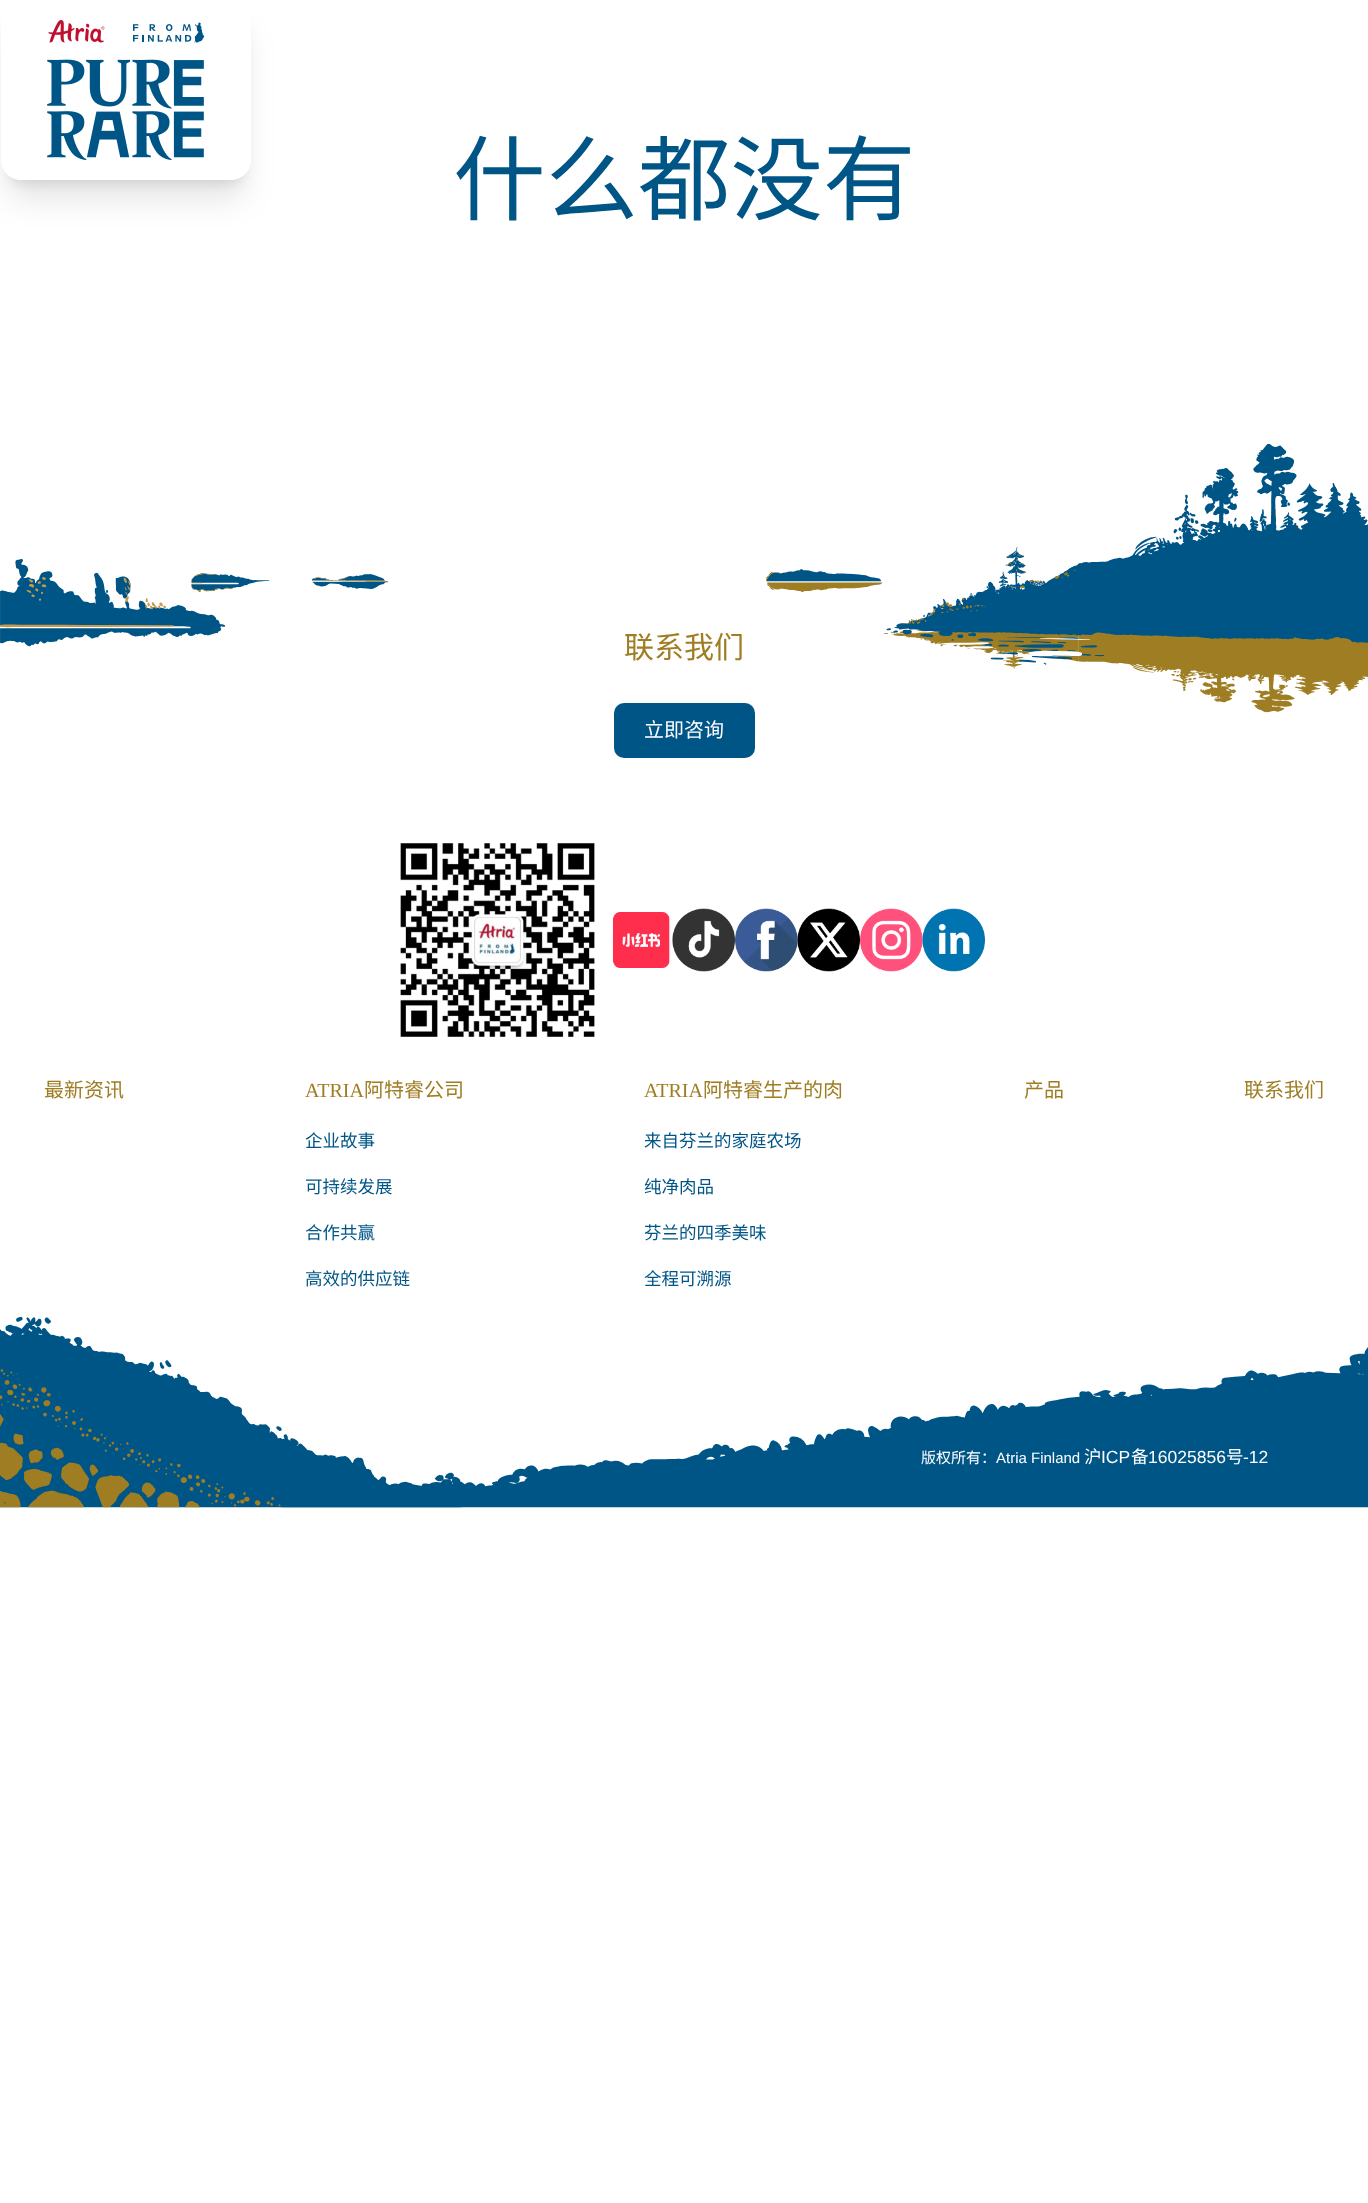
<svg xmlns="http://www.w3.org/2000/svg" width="1368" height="2203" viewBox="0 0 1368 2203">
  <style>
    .t1 { font: 92.5px Noto Sans CJK SC; fill: #005587; }
    .t2 { font: 30px Noto Sans CJK SC; fill: #9f7d23; }
    .t3 { font: 20px Noto Sans CJK SC; fill: #fff; }
    .t4 { font: 20px Noto Sans CJK SC; fill: #9f7d23; }
    .t5 { font: 20px Liberation Serif; fill: #9f7d23; }
    .t6 { font: 17.5px Noto Sans CJK SC; fill: #005587; }
    .t7 { font: 15px Noto Sans CJK SC; fill: #fff; }
    .t8 { font: 15px Liberation Sans; fill: #fff; }
    .t9 { font: 17.5px Noto Sans CJK SC; fill: #fff; }
    .t10 { font: 17.5px Liberation Sans; fill: #fff; }
  </style>
  <rect width="100%" height="100%" fill="#fff"/>
  <rect x="9" y="18" width="235" height="165" rx="13" fill="#0000001a" filter="blur(6px)"/>
  <rect x="8" y="31" width="237" height="168" rx="14" fill="#0000001a" filter="blur(15.5px)"/>
  <path d="M1 0H251V160C251 171 242 180 231 180H21C10 180 1 171 1 160Z" fill="#fff"/>
  <image x="47" y="20" width="158" height="140" href="images/1.png"/>
  <text x="453" y="213" class="t1">什么都没有</text>
  <text x="624" y="658" class="t2">联系我们</text>
  <image x="0" y="444" width="1368" height="269" href="images/2.png"/>
  <rect x="614" y="703" width="141" height="55" rx="10" fill="#005587"/>
  <text x="644" y="737" class="t3">立即咨询</text>
  <image x="400" y="843" width="195" height="194" href="images/3.png"/>
  <image x="613" y="912" width="57" height="56" href="images/4.png"/>
  <image x="672" y="908" width="63" height="64" href="images/5.png"/>
  <image x="735" y="908" width="63" height="64" href="images/6.png"/>
  <image x="797" y="908" width="63" height="64" href="images/7.png"/>
  <image x="860" y="908" width="63" height="64" href="images/8.png"/>
  <image x="922" y="908" width="63" height="64" href="images/9.png"/>
  <text x="44" y="1097" class="t4">最新资讯</text>
  <text x="305" y="1097" class="t5">ATRIA</text>
  <text x="364" y="1097" class="t4">阿特睿公司</text>
  <text x="305" y="1147" class="t6">企业故事</text>
  <text x="305" y="1193" class="t6">可持续发展</text>
  <text x="305" y="1239" class="t6">合作共赢</text>
  <text x="305" y="1285" class="t6">高效的供应链</text>
  <text x="644" y="1097" class="t5">ATRIA</text>
  <text x="703" y="1097" class="t4">阿特睿生产的肉</text>
  <text x="644" y="1147" class="t6">来自芬兰的家庭农场</text>
  <text x="644" y="1193" class="t6">纯净肉品</text>
  <text x="644" y="1239" class="t6">芬兰的四季美味</text>
  <text x="644" y="1285" class="t6">全程可溯源</text>
  <text x="1024" y="1097" class="t4">产品</text>
  <text x="1244" y="1097" class="t4">联系我们</text>
  <image x="0" y="1316" width="1368" height="192" href="images/10.png"/>
  <text x="921" y="1463" class="t7">版权所有：</text>
  <text x="996" y="1463" class="t8">Atria Finland</text>
  <text x="1084" y="1463" class="t9">沪</text>
  <text x="1101" y="1463" class="t10">ICP</text>
  <text x="1131" y="1463" class="t9">备</text>
  <text x="1148" y="1463" class="t10">16025856</text>
  <text x="1226" y="1463" class="t9">号</text>
  <text x="1243" y="1463" class="t10">-12</text>
</svg>
